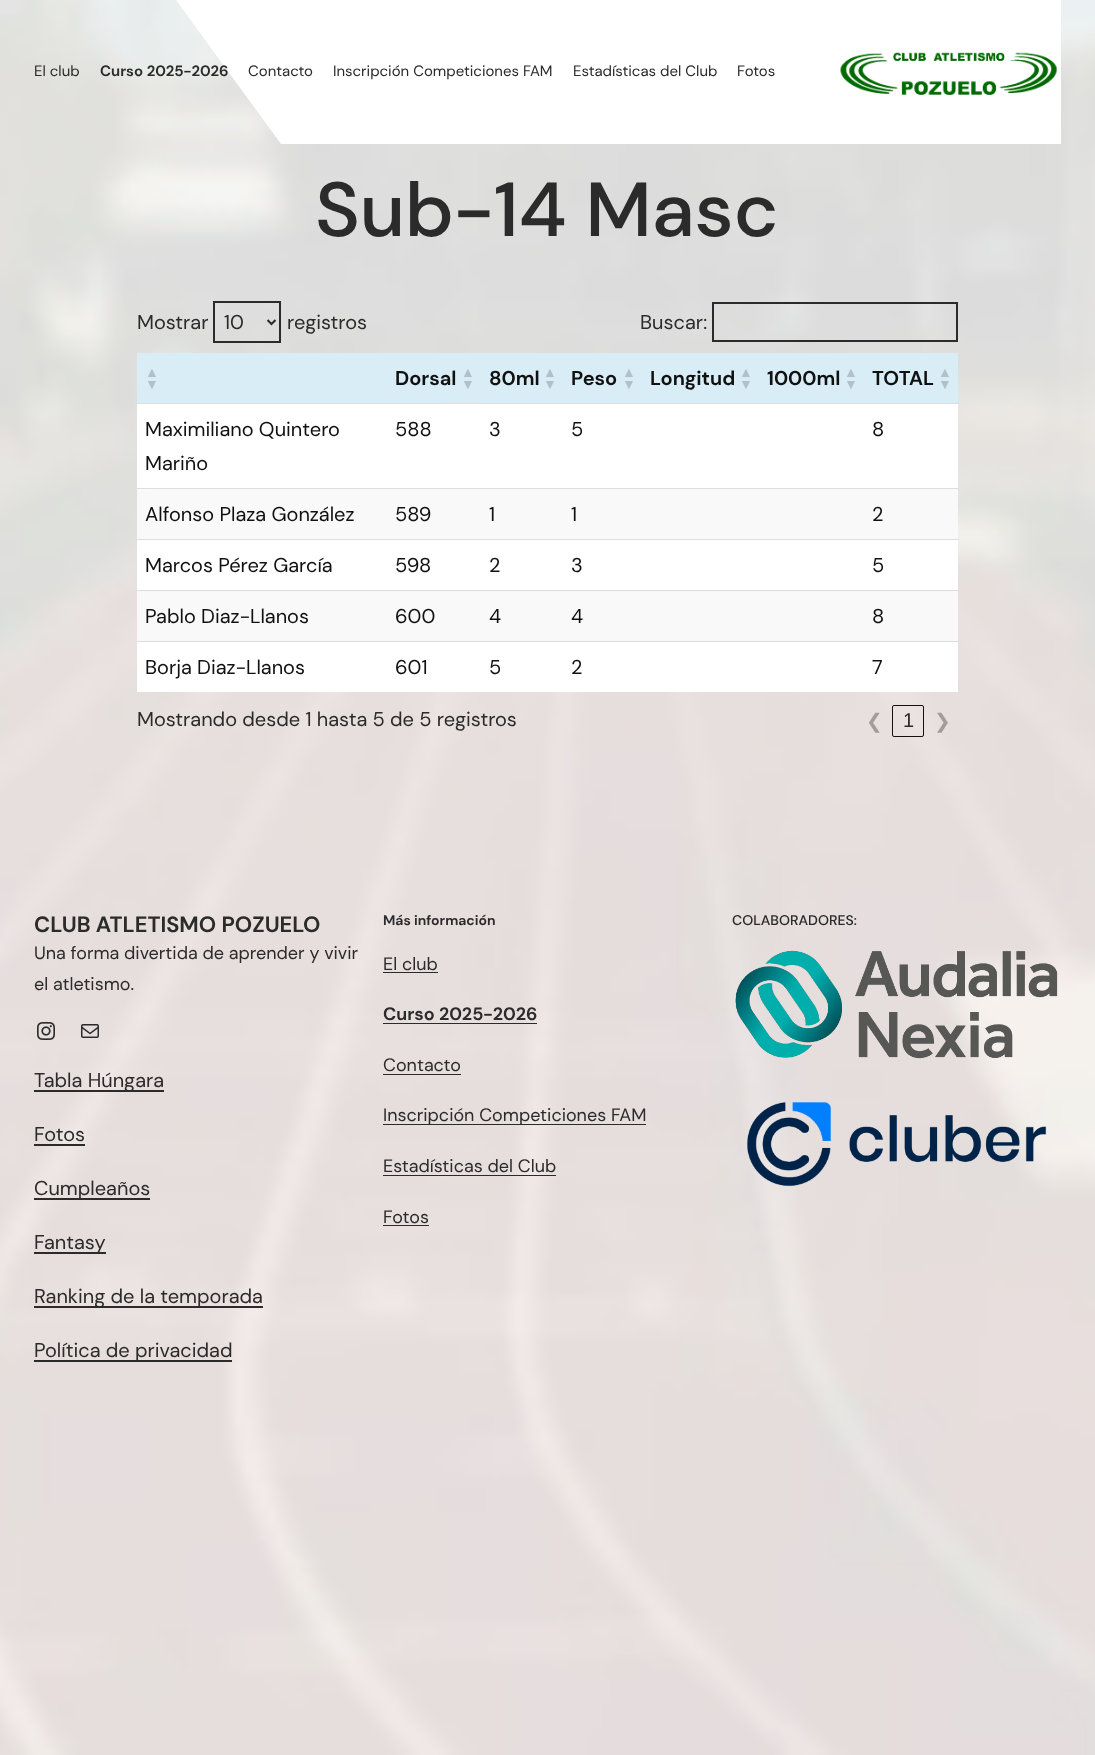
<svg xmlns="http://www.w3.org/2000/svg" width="1095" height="1755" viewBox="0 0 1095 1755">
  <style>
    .t1 { font: 15px DM Sans; fill: #2b2b2b; }
    .t2 { font: bold 15px DM Sans; fill: #2b2b2b; }
    .t3 { font: 500 76.5px DM Sans; fill: #2b2b2b; }
    .t4 { font: 20px DM Sans; fill: #2b2b2b; }
    .t5 { font: bold 14px Liberation Sans; fill: #b1c1c9; }
    .t6 { font: bold 20px DM Sans; fill: #111; }
    .t7 { font: 20px DM Sans; fill: #111; }
    .t8 { font: 20px DejaVu Sans; fill: #a29d9b; }
    .t9 { font: 20px Liberation Sans; fill: #2b2b2b; }
    .t10 { font: bold 22px DM Sans; fill: #2b2b2b; }
    .t11 { font: 18px DM Sans; fill: #2b2b2b; }
    .t12 { font: bold 14px DM Sans; fill: #2b2b2b; }
    .t13 { font: bold 18px DM Sans; fill: #2b2b2b; }
    .t14 { font: 500 14px DM Sans; fill: #2b2b2b; }
  </style>
  <rect width="100%" height="100%" fill="#fff"/>
  <image x="0" y="0" width="1095" height="1755" href="images/1.png"/>
  <path d="M176 0L281 144H1061V0Z" fill="#fff"/>
  <text x="34" y="76" class="t1">El club</text>
  <text x="100" y="76" class="t2">Curso 2025-2026</text>
  <text x="248" y="76" class="t1">Contacto</text>
  <text x="333" y="76" class="t1">Inscripción Competiciones FAM</text>
  <text x="573" y="76" class="t1">Estadísticas del Club</text>
  <text x="737" y="76" class="t1">Fotos</text>
  <image x="840" y="52" width="218" height="43" href="images/2.png"/>
  <text x="315" y="236" class="t3">Sub-14 Masc</text>
  <text x="137" y="329" class="t4">Mostrar</text>
  <rect x="214" y="302" width="66" height="40" fill="none" stroke="#2b2b2b" stroke-width="2"/>
  <path d="M267.5 320L271.5 324L275.5 320" fill="none" stroke="#2b2b2b" stroke-width="2"/>
  <text x="224" y="329" class="t4">10</text>
  <text x="287" y="329" class="t4">registros</text>
  <text x="640" y="329" class="t4">Buscar:</text>
  <rect x="713" y="303" width="244" height="38" fill="none" stroke="#2b2b2b" stroke-width="2"/>
  <rect x="137" y="353" width="821" height="50" fill="#d9edf7"/>
  <text x="145" y="377" class="t5">▲</text>
  <text x="145" y="389" class="t5">▼</text>
  <text x="395" y="385" class="t6">Dorsal</text>
  <text x="461" y="377" class="t5">▲</text>
  <text x="461" y="389" class="t5">▼</text>
  <text x="489" y="385" class="t6">80ml</text>
  <text x="543" y="377" class="t5">▲</text>
  <text x="543" y="389" class="t5">▼</text>
  <text x="571" y="385" class="t6">Peso</text>
  <text x="622" y="377" class="t5">▲</text>
  <text x="622" y="389" class="t5">▼</text>
  <text x="650" y="385" class="t6">Longitud</text>
  <text x="739" y="377" class="t5">▲</text>
  <text x="739" y="389" class="t5">▼</text>
  <text x="767" y="385" class="t6">1000ml</text>
  <text x="844" y="377" class="t5">▲</text>
  <text x="844" y="389" class="t5">▼</text>
  <text x="872" y="385" class="t6">TOTAL</text>
  <text x="938" y="377" class="t5">▲</text>
  <text x="938" y="389" class="t5">▼</text>
  <rect x="137" y="404" width="821" height="84" fill="#fff"/>
  <text x="145" y="436" class="t7">Maximiliano Quintero</text>
  <text x="145" y="470" class="t7">Mariño</text>
  <rect x="136" y="403" width="308" height="1" fill="#ddd"/>
  <text x="395" y="436" class="t7">588</text>
  <text x="489" y="436" class="t7">3</text>
  <text x="571" y="436" class="t7">5</text>
  <rect x="480" y="403" width="479" height="1" fill="#ddd"/>
  <text x="872" y="436" class="t7">8</text>
  <rect x="137" y="489" width="821" height="50" fill="#f9f9f9"/>
  <text x="145" y="521" class="t7">Alfonso Plaza González</text>
  <text x="395" y="521" class="t7">589</text>
  <text x="489" y="521" class="t7">1</text>
  <text x="571" y="521" class="t7">1</text>
  <rect x="156" y="488" width="803" height="1" fill="#ddd"/>
  <text x="872" y="521" class="t7">2</text>
  <rect x="137" y="540" width="821" height="50" fill="#fff"/>
  <text x="145" y="572" class="t7">Marcos Pérez García</text>
  <text x="395" y="572" class="t7">598</text>
  <text x="489" y="572" class="t7">2</text>
  <text x="571" y="572" class="t7">3</text>
  <rect x="136" y="539" width="823" height="1" fill="#ddd"/>
  <text x="872" y="572" class="t7">5</text>
  <rect x="137" y="591" width="821" height="50" fill="#f9f9f9"/>
  <text x="145" y="623" class="t7">Pablo Diaz-Llanos</text>
  <text x="395" y="623" class="t7">600</text>
  <text x="489" y="623" class="t7">4</text>
  <text x="571" y="623" class="t7">4</text>
  <rect x="136" y="590" width="823" height="1" fill="#ddd"/>
  <text x="872" y="623" class="t7">8</text>
  <rect x="137" y="642" width="821" height="50" fill="#fff"/>
  <text x="145" y="674" class="t7">Borja Diaz-Llanos</text>
  <text x="395" y="674" class="t7">601</text>
  <text x="489" y="674" class="t7">5</text>
  <text x="571" y="674" class="t7">2</text>
  <rect x="136" y="641" width="823" height="1" fill="#ddd"/>
  <text x="872" y="674" class="t7">7</text>
  <text x="137" y="726" class="t4">Mostrando desde 1 hasta 5 de 5 registros</text>
  <text x="866" y="728" class="t8">❮</text>
  <rect x="892.5" y="705.5" width="31" height="31" rx="1.5" fill="none" stroke="#111"/>
  <text x="903" y="727" class="t9">1</text>
  <text x="934" y="728" class="t8">❯</text>
  <text x="34" y="932" class="t10">CLUB ATLETISMO POZUELO</text>
  <text x="34" y="959" class="t11">Una forma divertida de aprender y vivir</text>
  <text x="34" y="990" class="t11">el atletismo.</text>
  <image x="37" y="1022" width="18" height="18" href="images/3.png"/>
  <image x="81" y="1024" width="18" height="14" href="images/4.png"/>
  <rect x="34" y="1090" width="130" height="2" fill="#2b2b2b"/>
  <text x="34" y="1087" class="t4">Tabla Húngara</text>
  <text x="34" y="1141" class="t4">Fotos</text>
  <rect x="34" y="1144" width="51" height="2" fill="#2b2b2b"/>
  <rect x="34" y="1198" width="116" height="2" fill="#2b2b2b"/>
  <text x="34" y="1195" class="t4">Cumpleaños</text>
  <rect x="34" y="1252" width="72" height="2" fill="#2b2b2b"/>
  <text x="34" y="1249" class="t4">Fantasy</text>
  <rect x="34" y="1306" width="229" height="2" fill="#2b2b2b"/>
  <text x="34" y="1303" class="t4">Ranking de la temporada</text>
  <rect x="34" y="1360" width="198" height="2" fill="#2b2b2b"/>
  <text x="34" y="1357" class="t4">Política de privacidad</text>
  <text x="383" y="925" class="t12">Más información</text>
  <text x="383" y="970" class="t11">El club</text>
  <rect x="383" y="972" width="55" height="1" fill="#2b2b2b"/>
  <text x="383" y="1020" class="t13">Curso 2025-2026</text>
  <rect x="383" y="1023" width="154" height="1" fill="#2b2b2b"/>
  <text x="383" y="1071" class="t11">Contacto</text>
  <rect x="383" y="1074" width="78" height="1" fill="#2b2b2b"/>
  <rect x="383" y="1124" width="263" height="1" fill="#2b2b2b"/>
  <text x="383" y="1121" class="t11">Inscripción Competiciones FAM</text>
  <text x="383" y="1172" class="t11">Estadísticas del Club</text>
  <rect x="383" y="1175" width="173" height="1" fill="#2b2b2b"/>
  <text x="383" y="1223" class="t11">Fotos</text>
  <rect x="383" y="1225" width="46" height="1" fill="#2b2b2b"/>
  <text x="732" y="925" class="t14">COLABORADORES:</text>
  <image x="735" y="950" width="323" height="109" href="images/5.png"/>
  <image x="747" y="1102" width="300" height="85" href="images/6.png"/>
</svg>
